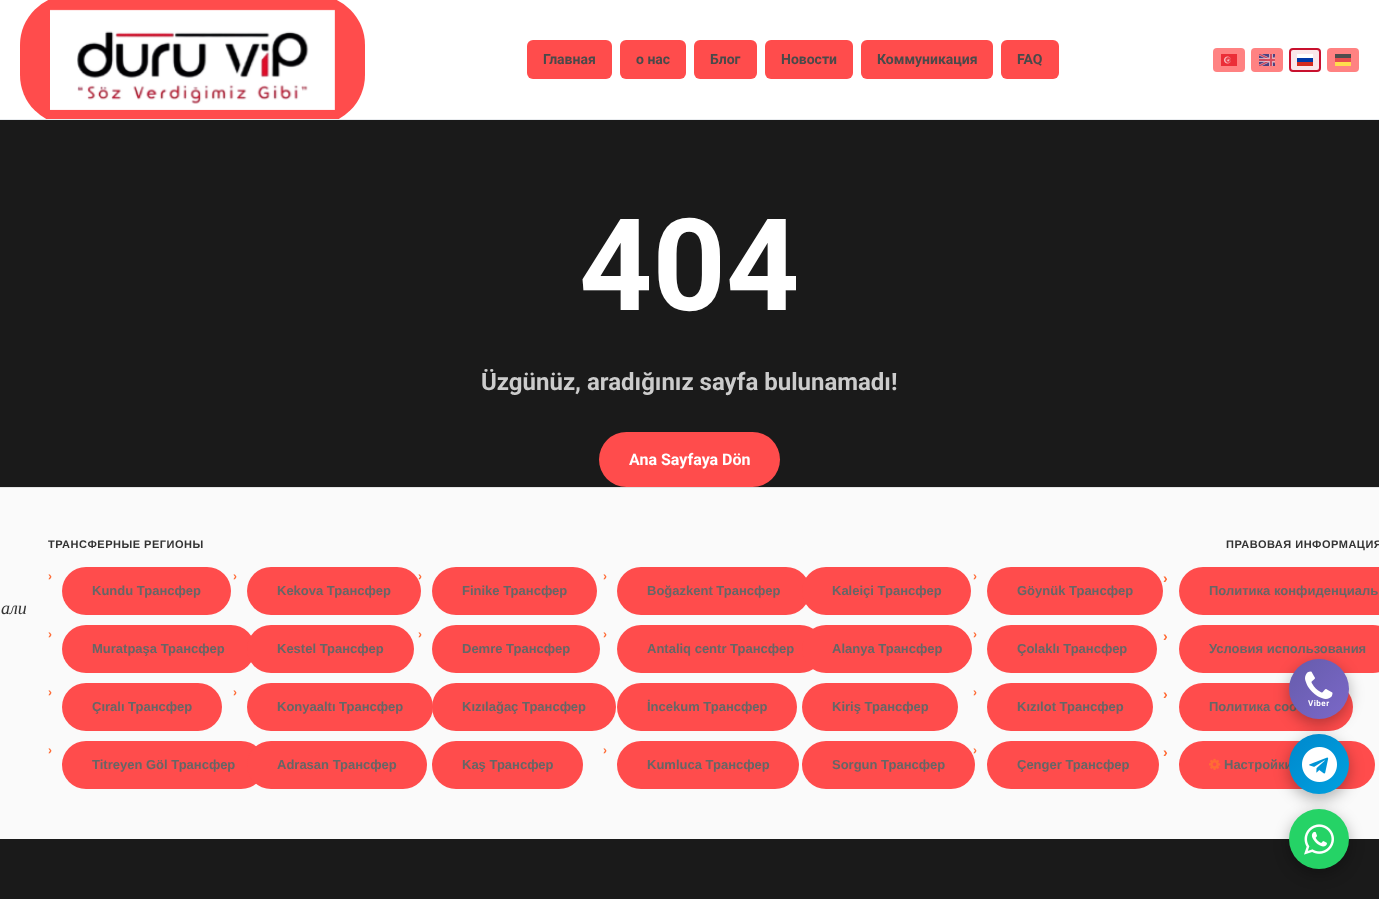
<svg xmlns="http://www.w3.org/2000/svg" width="1379" height="899" viewBox="0 0 1379 899">
  <style>
    .t1 { font: bold 14px Roboto; fill: #4a4a4a; }
    .t2 { font: bold 128px Roboto; fill: #fff; }
    .t3 { font: bold 24px Roboto; fill: #ccc; }
    .t4 { font: bold 16px Roboto; fill: #fff; }
    .t5 { font: italic 18px Liberation Serif; fill: #333; }
    .t6 { font: bold 11px Liberation Sans; letter-spacing: 0.5px; fill: #333; }
    .t7 { font: bold 12px Liberation Sans; fill: #ff6b35; }
    .t8 { font: bold 13px Liberation Sans; fill: #666; }
    .t9 { font: bold 14px Liberation Sans; fill: #ff6b35; }
    .t10 { font: bold 8px Roboto; letter-spacing: 0.5px; fill: #fff; }
  </style>
  <defs>
    <clipPath id="clip1"><rect x="0" y="0" width="1379" height="119"/></clipPath>
    <linearGradient id="g1" gradientUnits="userSpaceOnUse" x1="1289" y1="734" x2="1349" y2="794"><stop offset="0" stop-color="#08c"/><stop offset="1" stop-color="#00a1e0"/></linearGradient>
    <linearGradient id="g2" gradientUnits="userSpaceOnUse" x1="1289" y1="659" x2="1349" y2="719"><stop offset="0" stop-color="#665cac"/><stop offset="1" stop-color="#7b68c8"/></linearGradient>
  </defs>
  <rect width="100%" height="100%" fill="#1a1a1a"/>
  <rect x="0" y="0" width="1379" height="119" fill="#fff"/>
  <rect x="0" y="119" width="1379" height="1" fill="#e9ecef"/>
  <g clip-path="url(#clip1)">
    <rect x="20" y="-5" width="345" height="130" rx="50" fill="#ff4c4c"/>
  </g>
  <image x="50" y="9" width="285" height="101" href="images/1.png"/>
  <rect x="527" y="40" width="85" height="39" rx="6" fill="#ff4c4c"/>
  <text x="543" y="64" class="t1">Главная</text>
  <rect x="620" y="40" width="66" height="39" rx="6" fill="#ff4c4c"/>
  <text x="636" y="64" class="t1">о нас</text>
  <rect x="694" y="40" width="63" height="39" rx="6" fill="#ff4c4c"/>
  <text x="710" y="64" class="t1">Блог</text>
  <rect x="765" y="40" width="88" height="39" rx="6" fill="#ff4c4c"/>
  <text x="781" y="64" class="t1">Новости</text>
  <rect x="861" y="40" width="132" height="39" rx="6" fill="#ff4c4c"/>
  <text x="877" y="64" class="t1">Коммуникация</text>
  <rect x="1001" y="40" width="58" height="39" rx="6" fill="#ff4c4c"/>
  <text x="1017" y="64" class="t1">FAQ</text>
  <rect x="1213" y="48" width="32" height="24" rx="4" fill="#ff8282"/>
  <image x="1221" y="54" width="16" height="12" href="images/2.png"/>
  <rect x="1251" y="48" width="32" height="24" rx="4" fill="#ff8282"/>
  <image x="1259" y="54" width="16" height="12" href="images/3.png"/>
  <rect x="1290" y="49" width="30" height="22" rx="3" fill="#fae7ea" stroke="#c8102e" stroke-width="2"/>
  <rect x="1297" y="54" width="16" height="4" fill="#fff"/>
  <rect x="1297" y="58" width="16" height="4" fill="#0039a6"/>
  <rect x="1297" y="62" width="16" height="4" fill="#d52b1e"/>
  <rect x="1327" y="48" width="32" height="24" rx="4" fill="#ff8282"/>
  <rect x="1335" y="54" width="16" height="4" fill="#4d4d4d"/>
  <rect x="1335" y="58" width="16" height="4" fill="#e74d4d"/>
  <rect x="1335" y="62" width="16" height="4" fill="#ffdd4d"/>
  <text x="579" y="310" class="t2">404</text>
  <text x="481" y="390" class="t3">Üzgünüz, aradığınız sayfa bulunamadı!</text>
  <rect x="599" y="432" width="181" height="55" rx="27.5" fill="#ff4c4c"/>
  <text x="629" y="465" class="t4">Ana Sayfaya Dön</text>
  <rect x="0" y="488" width="1379" height="351" fill="#fafafa"/>
  <rect x="0" y="487" width="1379" height="1" fill="#e5e5e5"/>
  <text x="1" y="614" class="t5">али</text>
  <text x="48" y="548" class="t6">ТРАНСФЕРНЫЕ РЕГИОНЫ</text>
  <text x="48" y="580" class="t7">›</text>
  <rect x="62" y="567" width="169" height="48" rx="24" fill="#ff4c4c"/>
  <text x="92" y="595" class="t8">Kundu Трансфер</text>
  <text x="48" y="638" class="t7">›</text>
  <rect x="62" y="625" width="193" height="48" rx="24" fill="#ff4c4c"/>
  <text x="92" y="653" class="t8">Muratpaşa Трансфер</text>
  <text x="48" y="696" class="t7">›</text>
  <rect x="62" y="683" width="160" height="48" rx="24" fill="#ff4c4c"/>
  <text x="92" y="711" class="t8">Çıralı Трансфер</text>
  <text x="48" y="754" class="t7">›</text>
  <rect x="62" y="741" width="203" height="48" rx="24" fill="#ff4c4c"/>
  <text x="92" y="769" class="t8">Titreyen Göl Трансфер</text>
  <text x="233" y="580" class="t7">›</text>
  <rect x="247" y="567" width="174" height="48" rx="24" fill="#ff4c4c"/>
  <text x="277" y="595" class="t8">Kekova Трансфер</text>
  <rect x="247" y="625" width="167" height="48" rx="24" fill="#ff4c4c"/>
  <text x="277" y="653" class="t8">Kestel Трансфер</text>
  <text x="233" y="696" class="t7">›</text>
  <rect x="247" y="683" width="186" height="48" rx="24" fill="#ff4c4c"/>
  <text x="277" y="711" class="t8">Konyaaltı Трансфер</text>
  <rect x="247" y="741" width="180" height="48" rx="24" fill="#ff4c4c"/>
  <text x="277" y="769" class="t8">Adrasan Трансфер</text>
  <text x="418" y="580" class="t7">›</text>
  <rect x="432" y="567" width="165" height="48" rx="24" fill="#ff4c4c"/>
  <text x="462" y="595" class="t8">Finike Трансфер</text>
  <text x="418" y="638" class="t7">›</text>
  <rect x="432" y="625" width="168" height="48" rx="24" fill="#ff4c4c"/>
  <text x="462" y="653" class="t8">Demre Трансфер</text>
  <rect x="432" y="683" width="184" height="48" rx="24" fill="#ff4c4c"/>
  <text x="462" y="711" class="t8">Kızılağaç Трансфер</text>
  <rect x="432" y="741" width="151" height="48" rx="24" fill="#ff4c4c"/>
  <text x="462" y="769" class="t8">Kaş Трансфер</text>
  <text x="603" y="580" class="t7">›</text>
  <rect x="617" y="567" width="193" height="48" rx="24" fill="#ff4c4c"/>
  <text x="647" y="595" class="t8">Boğazkent Трансфер</text>
  <text x="603" y="638" class="t7">›</text>
  <rect x="617" y="625" width="207" height="48" rx="24" fill="#ff4c4c"/>
  <text x="647" y="653" class="t8">Antaliq centr Трансфер</text>
  <rect x="617" y="683" width="180" height="48" rx="24" fill="#ff4c4c"/>
  <text x="647" y="711" class="t8">İncekum Трансфер</text>
  <text x="603" y="754" class="t7">›</text>
  <rect x="617" y="741" width="182" height="48" rx="24" fill="#ff4c4c"/>
  <text x="647" y="769" class="t8">Kumluca Трансфер</text>
  <rect x="802" y="567" width="169" height="48" rx="24" fill="#ff4c4c"/>
  <text x="832" y="595" class="t8">Kaleiçi Трансфер</text>
  <rect x="802" y="625" width="170" height="48" rx="24" fill="#ff4c4c"/>
  <text x="832" y="653" class="t8">Alanya Трансфер</text>
  <rect x="802" y="683" width="156" height="48" rx="24" fill="#ff4c4c"/>
  <text x="832" y="711" class="t8">Kiriş Трансфер</text>
  <rect x="802" y="741" width="173" height="48" rx="24" fill="#ff4c4c"/>
  <text x="832" y="769" class="t8">Sorgun Трансфер</text>
  <text x="973" y="580" class="t7">›</text>
  <rect x="987" y="567" width="176" height="48" rx="24" fill="#ff4c4c"/>
  <text x="1017" y="595" class="t8">Göynük Трансфер</text>
  <text x="973" y="638" class="t7">›</text>
  <rect x="987" y="625" width="170" height="48" rx="24" fill="#ff4c4c"/>
  <text x="1017" y="653" class="t8">Çolaklı Трансфер</text>
  <text x="973" y="696" class="t7">›</text>
  <rect x="987" y="683" width="166" height="48" rx="24" fill="#ff4c4c"/>
  <text x="1017" y="711" class="t8">Kızılot Трансфер</text>
  <text x="973" y="754" class="t7">›</text>
  <rect x="987" y="741" width="172" height="48" rx="24" fill="#ff4c4c"/>
  <text x="1017" y="769" class="t8">Çenger Трансфер</text>
  <text x="1226" y="548" class="t6">ПРАВОВАЯ ИНФОРМАЦИЯ</text>
  <text x="1163" y="583" class="t9">›</text>
  <rect x="1179" y="567" width="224" height="48" rx="24" fill="#ff4c4c"/>
  <text x="1209" y="595" class="t8">Политика конфиденциаль</text>
  <text x="1163" y="641" class="t9">›</text>
  <rect x="1179" y="625" width="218" height="48" rx="24" fill="#ff4c4c"/>
  <text x="1209" y="653" class="t8">Условия использования</text>
  <text x="1163" y="699" class="t9">›</text>
  <rect x="1179" y="683" width="174" height="48" rx="24" fill="#ff4c4c"/>
  <text x="1209" y="711" class="t8">Политика coo</text>
  <text x="1163" y="757" class="t9">›</text>
  <rect x="1179" y="741" width="196" height="48" rx="24" fill="#ff4c4c"/>
  <image x="1209" y="758" width="12" height="12" href="images/4.png"/>
  <text x="1224" y="769" class="t8">Настройки</text>
  <rect x="1289" y="739" width="60" height="60" rx="30" fill="#0000004d" filter="blur(7.5px)"/>
  <circle cx="1319" cy="764" r="30" fill="url(#g1)"/>
  <image x="1302" y="747" width="35" height="35" href="images/6.png"/>
  <rect x="1289" y="664" width="60" height="60" rx="30" fill="#0000004d" filter="blur(7.5px)"/>
  <circle cx="1319" cy="689" r="30" fill="url(#g2)"/>
  <image x="1305" y="671" width="28" height="28" href="images/5.png"/>
  <text x="1308" y="706" class="t10">Viber</text>
  <rect x="1289" y="814" width="60" height="60" rx="30" fill="#0000004d" filter="blur(7.5px)"/>
  <circle cx="1319" cy="839" r="30" fill="#25d366"/>
  <image x="1304" y="824" width="30" height="31" href="images/7.png"/>
</svg>
